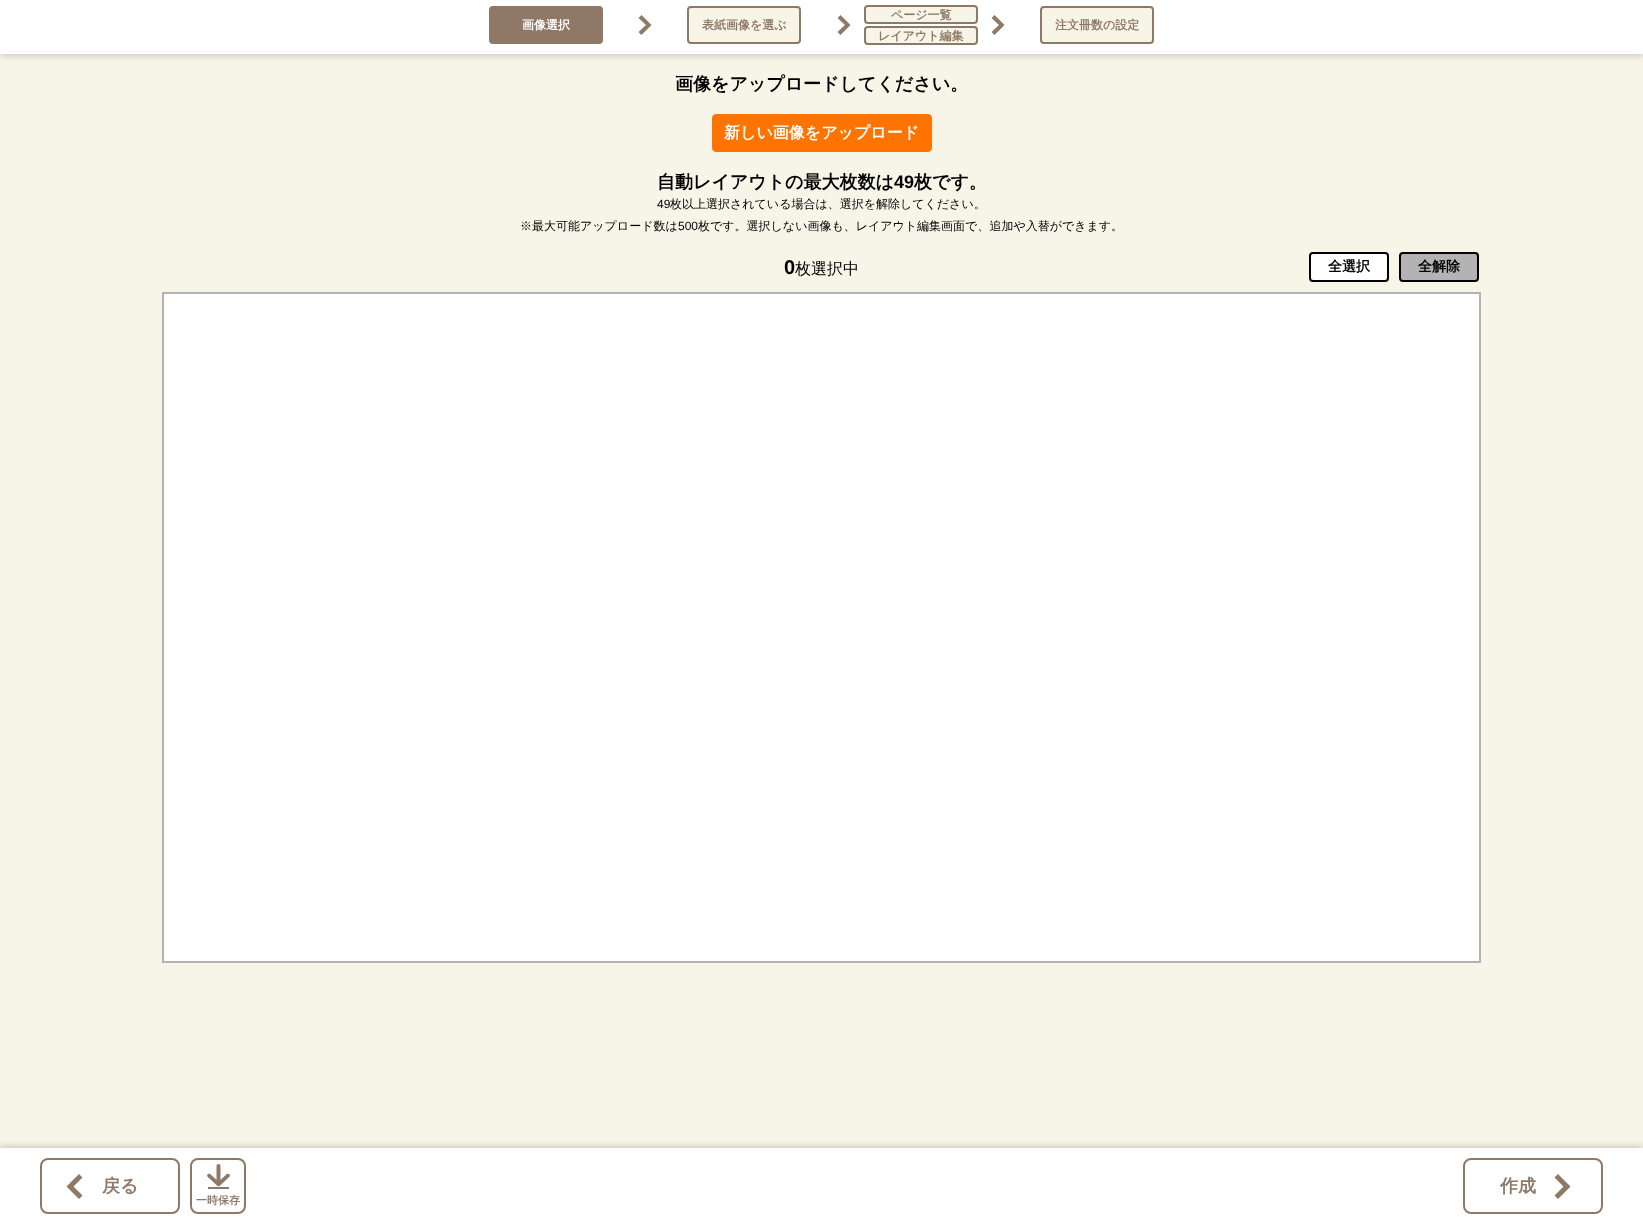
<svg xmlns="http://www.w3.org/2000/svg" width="1643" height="1224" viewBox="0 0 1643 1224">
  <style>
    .t1 { font: bold 12px WenQuanYi Zen Hei; fill: #fff; }
    .t2 { font: bold 12px WenQuanYi Zen Hei; fill: #907866; }
    .t3 { font: bold 18px WenQuanYi Zen Hei; fill: #000; }
    .t4 { font: bold 16px WenQuanYi Zen Hei; fill: #fff; }
    .t5 { font: bold 18px Liberation Sans; fill: #000; }
    .t6 { font: 12px Liberation Sans; fill: #000; }
    .t7 { font: 500 12px WenQuanYi Zen Hei; fill: #000; }
    .t8 { font: bold 20px Liberation Sans; fill: #000; }
    .t9 { font: 500 16px WenQuanYi Zen Hei; fill: #000; }
    .t10 { font: bold 14px WenQuanYi Zen Hei; fill: #000; }
    .t11 { font: bold 18px WenQuanYi Zen Hei; fill: #907866; }
    .t12 { font: bold 11px WenQuanYi Zen Hei; fill: #907866; }
  </style>
  <rect width="100%" height="100%" fill="#f6f5e8"/>
  <rect x="0" y="2" width="1643" height="54" fill="#d1c6be" filter="blur(3px)"/>
  <rect x="0" y="0" width="1643" height="54" fill="#fff"/>
  <rect x="490" y="7" width="112" height="36" rx="3" fill="#907866" stroke="#907866" stroke-width="2"/>
  <text x="522" y="29" class="t1">画像選択</text>
  <path d="M641.5 15L638.5 18L646 25L638.5 32L641.5 35L651.5 25Z" fill="#907866"/>
  <rect x="688" y="7" width="112" height="36" rx="3" fill="#f6f5e8" stroke="#907866" stroke-width="2"/>
  <text x="702" y="29" class="t2">表紙画像を選ぶ</text>
  <path d="M840.5 15L837.5 18L845 25L837.5 32L840.5 35L850.5 25Z" fill="#907866"/>
  <rect x="865" y="6" width="112" height="17" rx="3" fill="#f6f5e8" stroke="#907866" stroke-width="2"/>
  <text x="891" y="19" class="t2">ページ一覧</text>
  <rect x="865" y="27" width="112" height="17" rx="3" fill="#f6f5e8" stroke="#907866" stroke-width="2"/>
  <text x="878" y="40" class="t2">レイアウト編集</text>
  <path d="M994.5 15L991.5 18L999 25L991.5 32L994.5 35L1004.5 25Z" fill="#907866"/>
  <rect x="1041" y="7" width="112" height="36" rx="3" fill="#f6f5e8" stroke="#907866" stroke-width="2"/>
  <text x="1055" y="29" class="t2">注文冊数の設定</text>
  <text x="675" y="90" class="t3">画像をアップロードしてください。</text>
  <rect x="712.5" y="114.5" width="219" height="37" rx="3.5" fill="#ff7400" stroke="#ff7400"/>
  <text x="724" y="138" class="t4">新しい画像をアップロード</text>
  <text x="657" y="188" class="t3">自動レイアウトの最大枚数は</text>
  <text x="894" y="188" class="t5">49</text>
  <text x="914" y="188" class="t3">枚です。</text>
  <text x="657" y="208" class="t6">49</text>
  <text x="670" y="208" class="t7">枚以上選択されている場合は、選択を解除してください。</text>
  <text x="520" y="230" class="t7">※最大可能アップロード数は</text>
  <text x="678" y="230" class="t6">500</text>
  <text x="698" y="230" class="t7">枚です。選択しない画像も、レイアウト編集画面で、追加や入替ができます。</text>
  <text x="784" y="274" class="t8">0</text>
  <text x="795" y="274" class="t9">枚選択中</text>
  <rect x="1310" y="253" width="78" height="28" rx="3" fill="#fff" stroke="#000" stroke-width="2"/>
  <text x="1328" y="271" class="t10">全選択</text>
  <rect x="1400" y="253" width="78" height="28" rx="3" fill="#b3b3b3" stroke="#000" stroke-width="2"/>
  <text x="1418" y="271" class="t10">全解除</text>
  <rect x="163" y="293" width="1317" height="669" fill="#fff" stroke="#b3b3b3" stroke-width="2"/>
  <rect x="0" y="1146" width="1643" height="76" fill="#d1c6be" filter="blur(3px)"/>
  <rect x="0" y="1148" width="1643" height="76" fill="#fff"/>
  <path d="M82.5 1177.5L79 1174L66.5 1186.5L79 1199L82.5 1195.5L73.5 1186.5Z" fill="#907866"/>
  <rect x="41" y="1159" width="138" height="54" rx="7" fill="none" stroke="#907866" stroke-width="2"/>
  <text x="102" y="1192" class="t11">戻る</text>
  <path d="M1558 1174L1554.5 1177.5L1563.5 1186.5L1554.5 1195.5L1558 1199L1570.5 1186.5Z" fill="#907866"/>
  <rect x="1464" y="1159" width="138" height="54" rx="7" fill="none" stroke="#907866" stroke-width="2"/>
  <text x="1500" y="1192" class="t11">作成</text>
  <image x="207" y="1164" width="23" height="25" href="images/1.png"/>
  <rect x="191" y="1159" width="54" height="54" rx="7" fill="none" stroke="#907866" stroke-width="2"/>
  <text x="196" y="1204" class="t12">一時保存</text>
</svg>
